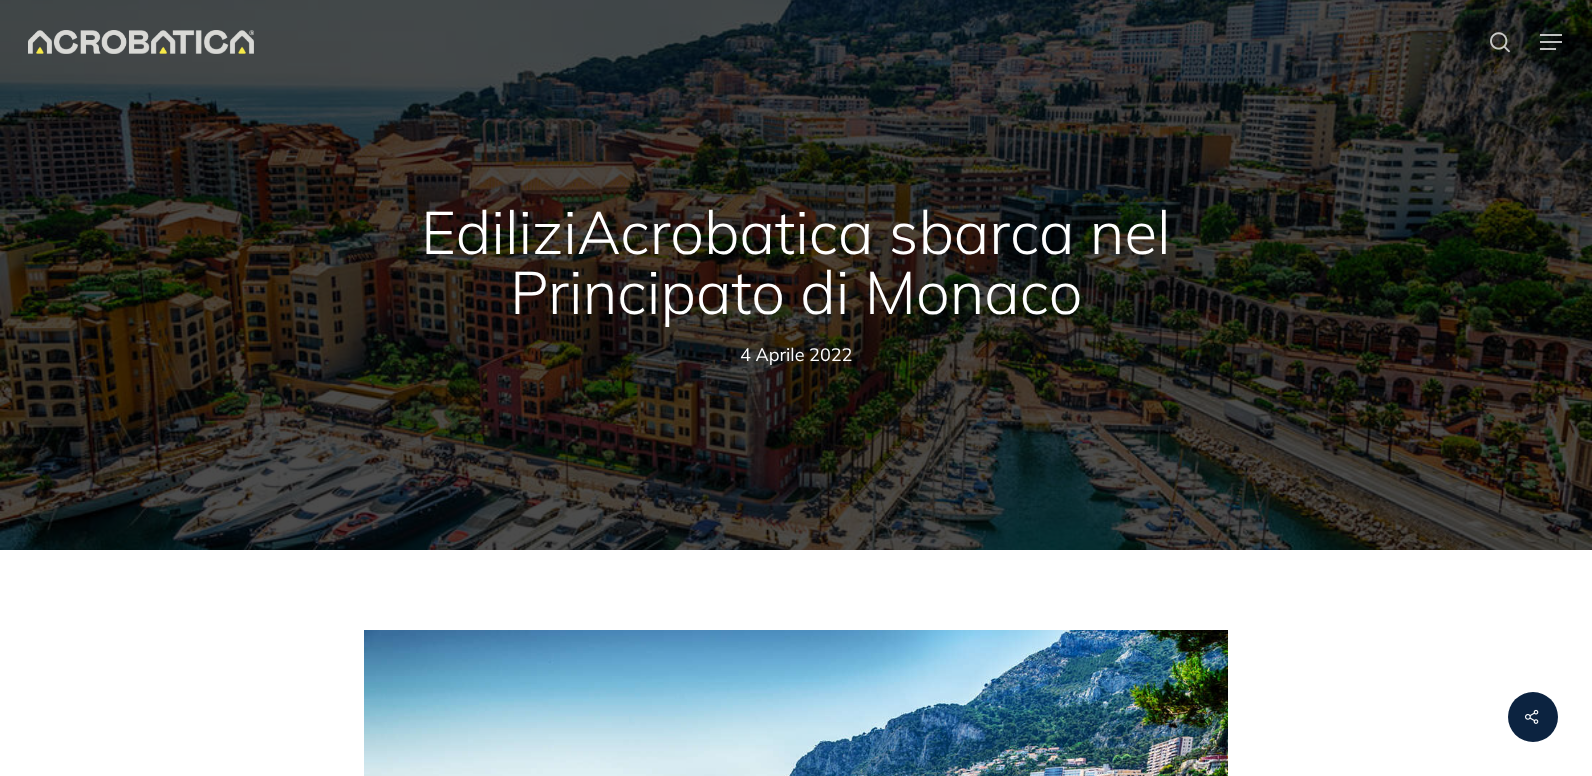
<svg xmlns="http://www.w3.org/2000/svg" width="1592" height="776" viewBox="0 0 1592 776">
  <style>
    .t1 { font: 300 60px Mulish; fill: #fff; }
    .t2 { font: 18px Mulish; fill: #fff; }
  </style>
  <rect width="100%" height="100%" fill="#fff"/>
  <image x="0" y="0" width="1592" height="550" href="images/3.png"/>
  <image x="28" y="30" width="226" height="24" href="images/1.png"/>
  <image x="1490" y="32" width="20" height="21" href="images/2.png"/>
  <rect x="1540" y="34" width="22" height="2" fill="#ffffffbf"/>
  <rect x="1540" y="48" width="16" height="2" fill="#ffffffbf"/>
  <rect x="1540" y="41" width="22" height="2" fill="#ffffffbf"/>
  <text x="421" y="254" class="t1">EdiliziAcrobatica sbarca nel</text>
  <text x="510" y="314" class="t1">Principato di Monaco</text>
  <text x="740" y="361" class="t2">4 Aprile 2022</text>
  <image x="364" y="630" width="864" height="146" href="images/4.png"/>
  <circle cx="1533" cy="717" r="25" fill="#0c2340"/>
  <image x="1525" y="709" width="14" height="15" href="images/5.png"/>
</svg>
